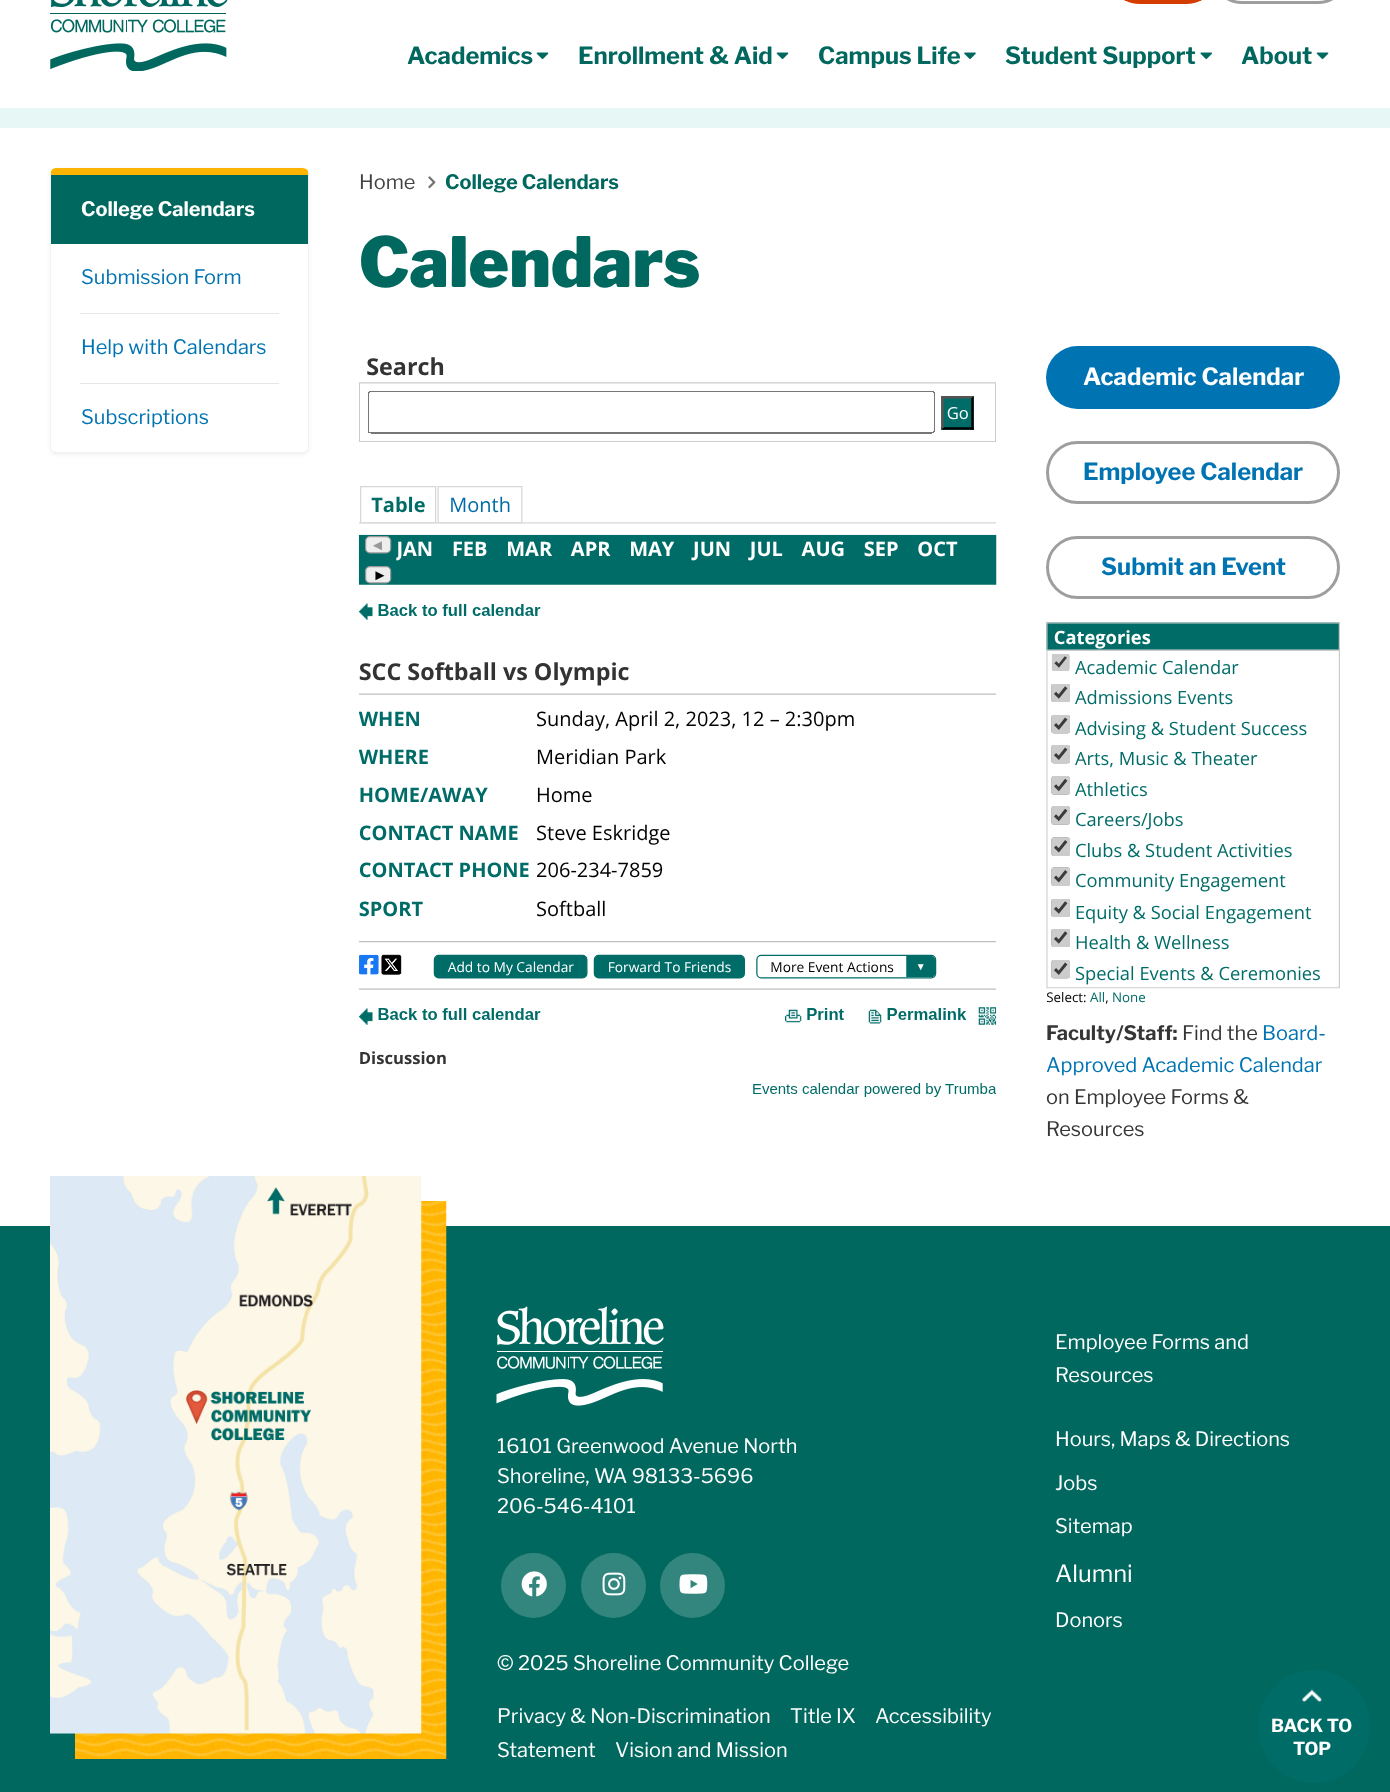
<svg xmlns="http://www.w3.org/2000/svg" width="1390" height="1792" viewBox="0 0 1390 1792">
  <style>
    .t1 { font: bold 23.75px Libre Franklin; fill: #00685e; }
    .t2 { font: bold 20px Libre Franklin; fill: #fff; }
    .t3 { font: 20px Libre Franklin; fill: #0074b3; }
    .t4 { font: 20px Libre Franklin; fill: #444; }
    .t5 { font: bold 20px Libre Franklin; fill: #00685e; }
    .t6 { font: 900 68.75px Libre Franklin; fill: #00685e; }
    .t7 { font: bold 23.75px Libre Franklin; fill: #fff; }
    .t8 { font: bold 23.75px Libre Franklin; fill: #0074b3; }
    .t9 { font: bold 20px Libre Franklin; fill: #363636; }
    .t10 { font: 20px Libre Franklin; fill: #363636; }
    .t11 { font: 20px Libre Franklin; fill: #fff; }
    .t12 { font: 23.75px Libre Franklin; fill: #fff; }
    .t13 { font: bold 18px Libre Franklin; fill: #fff; }
  </style>
  <rect width="100%" height="100%" fill="#fff"/>
  <image x="50" y="0" width="178" height="71" href="images/1.png"/>
  <rect x="1118" y="-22" width="90" height="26" rx="22" fill="#d43c00"/>
  <rect x="1221.5" y="-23.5" width="117" height="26" rx="20.5" fill="none" stroke="#9e9e9e" stroke-width="3"/>
  <text x="407" y="64" class="t1">Academics</text>
  <image x="536" y="52" width="13" height="8" href="images/2.png"/>
  <text x="578" y="64" class="t1">Enrollment &amp; Aid</text>
  <image x="776" y="52" width="13" height="8" href="images/2.png"/>
  <text x="818" y="64" class="t1">Campus Life</text>
  <image x="964" y="52" width="12" height="7" href="images/3.png"/>
  <text x="1005" y="64" class="t1">Student Support</text>
  <image x="1200" y="52" width="12" height="8" href="images/4.png"/>
  <text x="1241" y="64" class="t1">About</text>
  <image x="1316" y="52" width="13" height="8" href="images/2.png"/>
  <rect x="0" y="108" width="1390" height="20" fill="#e6f7f5"/>
  <rect x="50" y="169" width="259" height="286" rx="6" fill="#0000000d" filter="blur(2px)"/>
  <rect x="50" y="168" width="259" height="286" rx="6" fill="#fff"/>
  <path d="M56 168C54 168 52 169 51 171V175H308V171C307 169 305 168 302 168Z" fill="#ffb500"/>
  <path d="M309 450L307 452L306 451C307 450 308 449 308 448V175V171L309 172Z" fill="#f2f2f2"/>
  <path d="M54 454L52 452L53 451L56 452H302L306 451L307 452L304 454Z" fill="#0000000d"/>
  <path d="M50 174V448C50 449 51 451 52 452L53 451C52 450 51 449 51 448V175V171Z" fill="#0000000d"/>
  <rect x="51" y="175" width="257" height="69" fill="#00685e"/>
  <text x="81" y="216" class="t2">College Calendars</text>
  <rect x="80" y="313" width="199" height="1" fill="#e6e6e6"/>
  <text x="81" y="284" class="t3">Submission Form</text>
  <rect x="80" y="383" width="199" height="1" fill="#e6e6e6"/>
  <text x="81" y="354" class="t3">Help with Calendars</text>
  <text x="81" y="424" class="t3">Subscriptions</text>
  <text x="359" y="189" class="t4">Home</text>
  <image x="428" y="176" width="8" height="13" href="images/5.png"/>
  <text x="445" y="189" class="t5">College Calendars</text>
  <text x="359" y="287" class="t6">Calendars</text>
  <image x="359" y="357" width="637" height="85" href="images/6.png"/>
  <image x="359" y="486" width="637" height="38" href="images/7.png"/>
  <image x="358" y="534" width="639" height="51" href="images/8.png"/>
  <image x="358" y="603" width="639" height="494" href="images/9.png"/>
  <rect x="1046" y="346" width="294" height="63" rx="31.5" fill="#0074b3"/>
  <text x="1083" y="385" class="t7">Academic Calendar</text>
  <rect x="1047.5" y="442.5" width="291" height="60" rx="30" fill="none" stroke="#9e9e9e" stroke-width="3"/>
  <text x="1083" y="480" class="t8">Employee Calendar</text>
  <rect x="1047.5" y="537.5" width="291" height="60" rx="30" fill="none" stroke="#9e9e9e" stroke-width="3"/>
  <text x="1101" y="575" class="t8">Submit an Event</text>
  <image x="1046" y="622" width="294" height="382" href="images/10.png"/>
  <text x="1046" y="1040" class="t9">Faculty/Staff:</text>
  <text x="1182" y="1040" class="t10">Find the</text>
  <text x="1262" y="1040" class="t3">Board-</text>
  <text x="1046" y="1072" class="t3">Approved Academic Calendar</text>
  <text x="1046" y="1104" class="t10">on Employee Forms &amp;</text>
  <text x="1046" y="1136" class="t10">Resources</text>
  <rect x="0" y="1226" width="1390" height="566" fill="#00685e"/>
  <rect x="75" y="1758" width="371" height="1" fill="#ffb500"/>
  <image x="75" y="1201" width="372" height="558" href="images/11.png"/>
  <image x="50" y="1176" width="372" height="558" href="images/12.png"/>
  <image x="496" y="1306" width="168" height="100" href="images/13.png"/>
  <text x="497" y="1453" class="t11">16101 Greenwood Avenue North</text>
  <text x="497" y="1483" class="t11">Shoreline, WA 98133-5696</text>
  <text x="497" y="1513" class="t11">206-546-4101</text>
  <circle cx="533.5" cy="1585.5" r="32.5" fill="#33867e"/>
  <image x="521" y="1571" width="26" height="26" href="images/14.png"/>
  <circle cx="613.5" cy="1585.5" r="32.5" fill="#33867e"/>
  <image x="602" y="1572" width="24" height="24" href="images/15.png"/>
  <circle cx="692.5" cy="1585.5" r="32.5" fill="#33867e"/>
  <image x="679" y="1574" width="29" height="20" href="images/16.png"/>
  <text x="497" y="1670" class="t11">© 2025 Shoreline Community College</text>
  <text x="497" y="1723" class="t11">Privacy &amp; Non-Discrimination</text>
  <text x="790" y="1723" class="t11">Title IX</text>
  <text x="875" y="1723" class="t11">Accessibility</text>
  <text x="497" y="1757" class="t11">Statement</text>
  <text x="615" y="1757" class="t11">Vision and Mission</text>
  <text x="1055" y="1349" class="t11">Employee Forms and</text>
  <text x="1055" y="1382" class="t11">Resources</text>
  <text x="1055" y="1446" class="t11">Hours, Maps &amp; Directions</text>
  <text x="1055" y="1490" class="t11">Jobs</text>
  <text x="1055" y="1533" class="t11">Sitemap</text>
  <text x="1055" y="1582" class="t12">Alumni</text>
  <text x="1055" y="1627" class="t11">Donors</text>
  <rect x="1258" y="1670" width="112" height="113" rx="56" fill="#006c68"/>
  <image x="1302" y="1689" width="20" height="13" href="images/17.png"/>
  <text x="1271" y="1732" class="t13">BACK TO</text>
  <text x="1293" y="1755" class="t13">TOP</text>
</svg>
